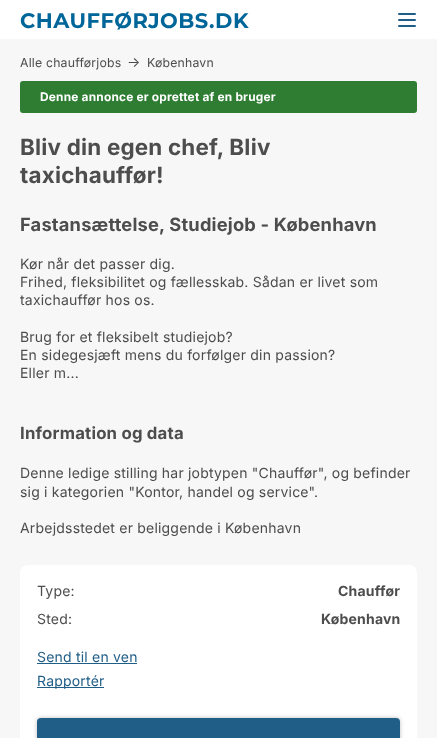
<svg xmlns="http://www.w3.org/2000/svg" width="437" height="738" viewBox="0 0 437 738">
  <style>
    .t1 { font: bold 21px Montserrat; letter-spacing: 0.5px; fill: #069; }
    .t2 { font: 12.25px Inter; letter-spacing: 0.2px; fill: #4d4d4d; }
    .t3 { font: 14px Inter; letter-spacing: 0.2px; fill: #4d4d4d; }
    .t4 { font: bold 11.9px Inter; letter-spacing: 0.2px; fill: #fff; }
    .t5 { font: bold 22.4px Inter; letter-spacing: 0.2px; fill: #4d4d4d; }
    .t6 { font: bold 18.25px Inter; letter-spacing: 0.2px; fill: #4d4d4d; }
    .t7 { font: bold 16.75px Inter; letter-spacing: 0.2px; fill: #4d4d4d; }
    .t8 { font: bold 14px Inter; letter-spacing: 0.2px; fill: #4d4d4d; }
    .t9 { font: 14px Inter; letter-spacing: 0.2px; fill: #215e87; }
  </style>
  <rect width="100%" height="100%" fill="#fff"/>
  <text x="20" y="28" class="t1">CHAUFFØRJOBS.DK</text>
  <rect x="398" y="13" width="18" height="2" rx="1" fill="#215e87"/>
  <rect x="398" y="19" width="18" height="2" rx="1" fill="#215e87"/>
  <rect x="398" y="25" width="18" height="2" rx="1" fill="#215e87"/>
  <rect x="0" y="39" width="437" height="699" fill="#f7f7f7"/>
  <text x="20" y="67" class="t2">Alle chaufførjobs</text>
  <text x="127" y="67" class="t3">→</text>
  <text x="147" y="67" class="t2">København</text>
  <rect x="20" y="81" width="397" height="32" rx="3" fill="#2e7d32"/>
  <text x="40" y="101" class="t4">Denne annonce er oprettet af en bruger</text>
  <text x="20" y="155" class="t5">Bliv din egen chef, Bliv</text>
  <text x="20" y="183" class="t5">taxichauffør!</text>
  <text x="20" y="231" class="t6">Fastansættelse, Studiejob - København</text>
  <text x="20" y="269" class="t3">Kør når det passer dig.</text>
  <text x="20" y="287" class="t3">Frihed, fleksibilitet og fællesskab. Sådan er livet som</text>
  <text x="20" y="305" class="t3">taxichauffør hos os.</text>
  <text x="20" y="342" class="t3">Brug for et fleksibelt studiejob?</text>
  <text x="20" y="360" class="t3">En sidegesjæft mens du forfølger din passion?</text>
  <text x="20" y="378" class="t3">Eller m...</text>
  <text x="20" y="439" class="t7">Information og data</text>
  <text x="20" y="478" class="t3">Denne ledige stilling har jobtypen "Chauffør", og befinder</text>
  <text x="20" y="497" class="t3">sig i kategorien "Kontor, handel og service".</text>
  <text x="20" y="533" class="t3">Arbejdsstedet er beliggende i København</text>
  <rect x="20" y="565" width="397" height="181" rx="8" fill="#fff"/>
  <text x="37" y="596" class="t3">Type:</text>
  <text x="338" y="596" class="t8">Chauffør</text>
  <text x="37" y="624" class="t3">Sted:</text>
  <text x="321" y="624" class="t8">København</text>
  <text x="37" y="662" class="t9">Send til en ven</text>
  <rect x="37" y="663" width="100" height="1" fill="#215e87"/>
  <rect x="37" y="687" width="67" height="1" fill="#215e87"/>
  <text x="37" y="686" class="t9">Rapportér</text>
  <rect x="37" y="718" width="363" height="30" rx="4" fill="#00000040" filter="blur(2px)"/>
  <rect x="37" y="718" width="363" height="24" rx="4" fill="#215e87"/>
</svg>
